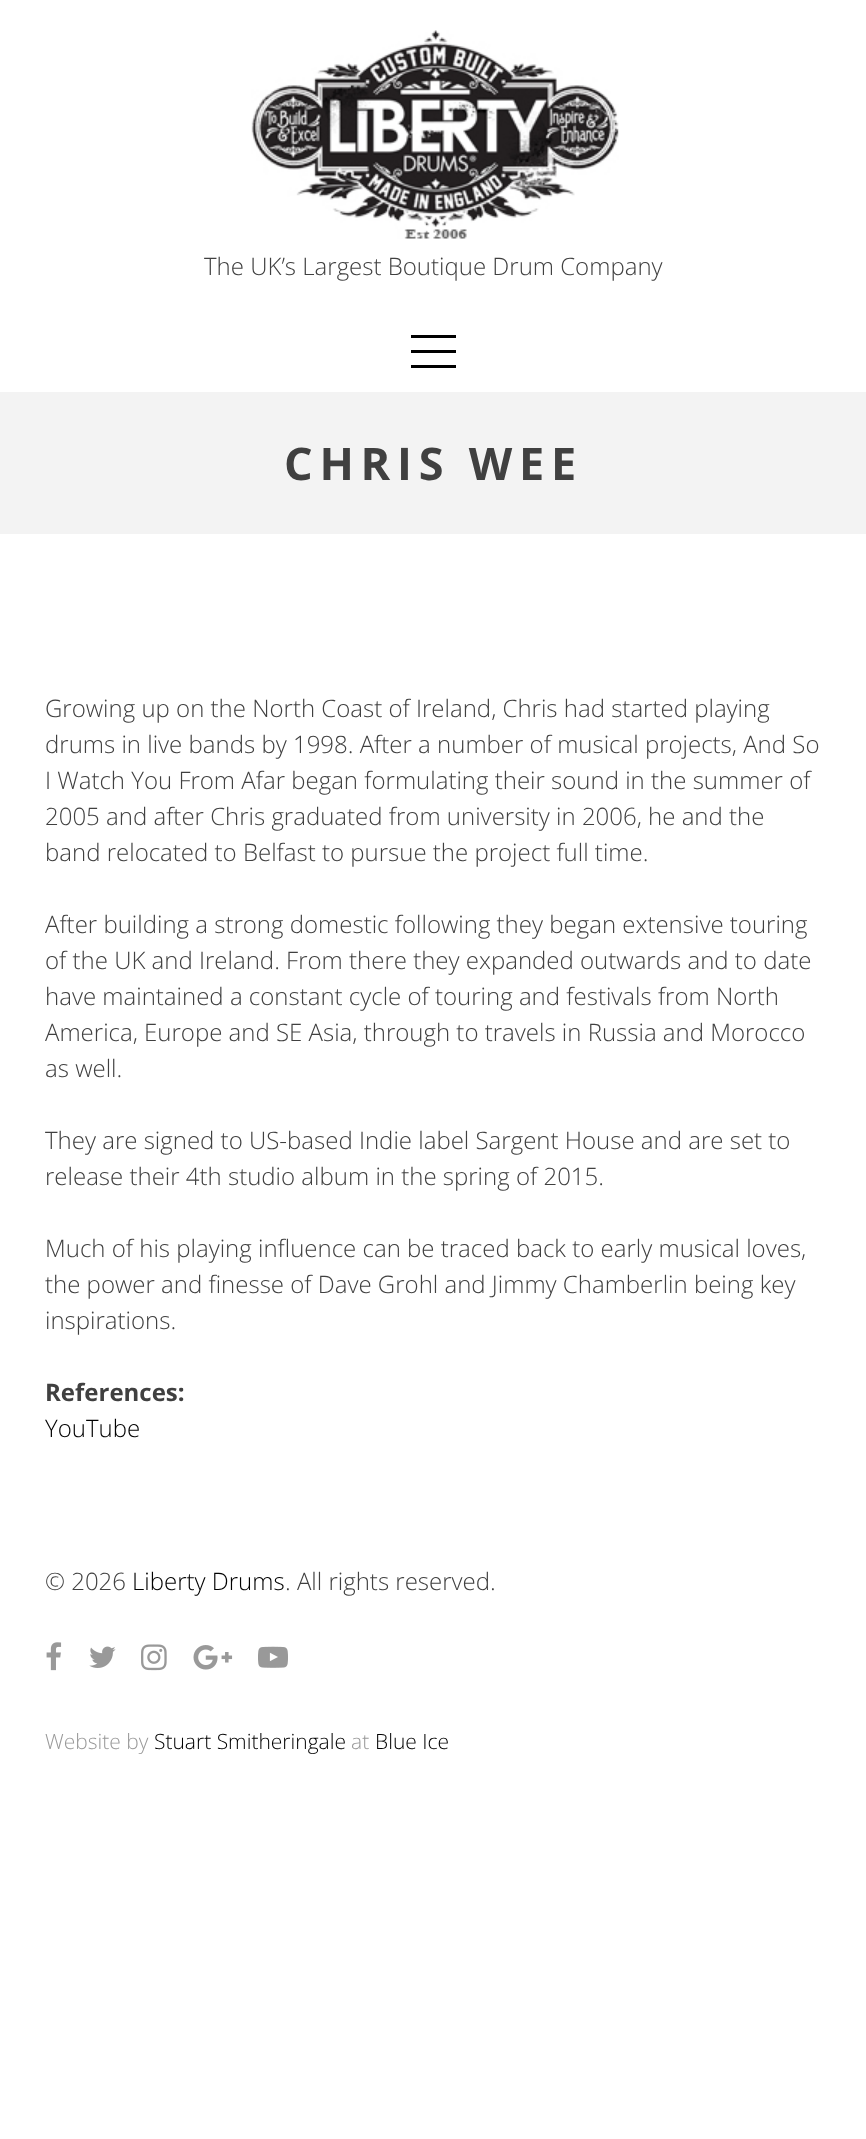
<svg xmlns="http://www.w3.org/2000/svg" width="866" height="2139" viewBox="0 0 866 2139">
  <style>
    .t1 { font: 300 24px Open Sans; fill: #404040; }
    .t2 { font: bold 45px Open Sans; letter-spacing: 6.75px; fill: #404040; }
    .t3 { font: bold 24px Open Sans; fill: #404040; }
    .t4 { font: 300 24px Open Sans; fill: #000; }
    .t5 { font: 300 21px Open Sans; fill: #999; }
    .t6 { font: 300 21px Open Sans; fill: #000; }
  </style>
  <rect width="100%" height="100%" fill="#fff"/>
  <image x="251" y="30" width="368" height="209" href="images/1.png"/>
  <text x="204" y="275" class="t1">The UK’s Largest Boutique Drum Company</text>
  <rect x="411" y="350" width="45" height="3" fill="#000"/>
  <rect x="411" y="335" width="45" height="3" fill="#000"/>
  <rect x="411" y="365" width="45" height="3" fill="#000"/>
  <rect x="0" y="392" width="866" height="142" fill="#f3f3f3"/>
  <text x="284" y="480" class="t2">CHRIS WEE</text>
  <text x="45" y="717" class="t1">Growing up on the North Coast of Ireland, Chris had started playing</text>
  <text x="45" y="753" class="t1">drums in live bands by 1998. After a number of musical projects, And So</text>
  <text x="45" y="789" class="t1">I Watch You From Afar began formulating their sound in the summer of</text>
  <text x="45" y="825" class="t1">2005 and after Chris graduated from university in 2006, he and the</text>
  <text x="45" y="861" class="t1">band relocated to Belfast to pursue the project full time.</text>
  <text x="45" y="933" class="t1">After building a strong domestic following they began extensive touring</text>
  <text x="45" y="969" class="t1">of the UK and Ireland. From there they expanded outwards and to date</text>
  <text x="45" y="1005" class="t1">have maintained a constant cycle of touring and festivals from North</text>
  <text x="45" y="1041" class="t1">America, Europe and SE Asia, through to travels in Russia and Morocco</text>
  <text x="45" y="1077" class="t1">as well.</text>
  <text x="45" y="1149" class="t1">They are signed to US-based Indie label Sargent House and are set to</text>
  <text x="45" y="1185" class="t1">release their 4th studio album in the spring of 2015.</text>
  <text x="45" y="1257" class="t1">Much of his playing influence can be traced back to early musical loves,</text>
  <text x="45" y="1293" class="t1">the power and finesse of Dave Grohl and Jimmy Chamberlin being key</text>
  <text x="45" y="1329" class="t1">inspirations.</text>
  <text x="45" y="1401" class="t3">References:</text>
  <text x="45" y="1437" class="t4">YouTube</text>
  <text x="45" y="1590" class="t1">© 2026</text>
  <text x="132" y="1590" class="t4">Liberty Drums</text>
  <text x="285" y="1590" class="t1">. All rights reserved.</text>
  <image x="46" y="1642" width="16" height="29" href="images/2.png"/>
  <image x="89" y="1646" width="27" height="22" href="images/3.png"/>
  <image x="141" y="1644" width="26" height="27" href="images/4.png"/>
  <image x="193" y="1645" width="40" height="25" href="images/5.png"/>
  <image x="258" y="1646" width="30" height="22" href="images/6.png"/>
  <text x="45" y="1749" class="t5">Website by</text>
  <text x="154" y="1749" class="t6">Stuart Smitheringale</text>
  <text x="351" y="1749" class="t5">at</text>
  <text x="375" y="1749" class="t6">Blue Ice</text>
</svg>
